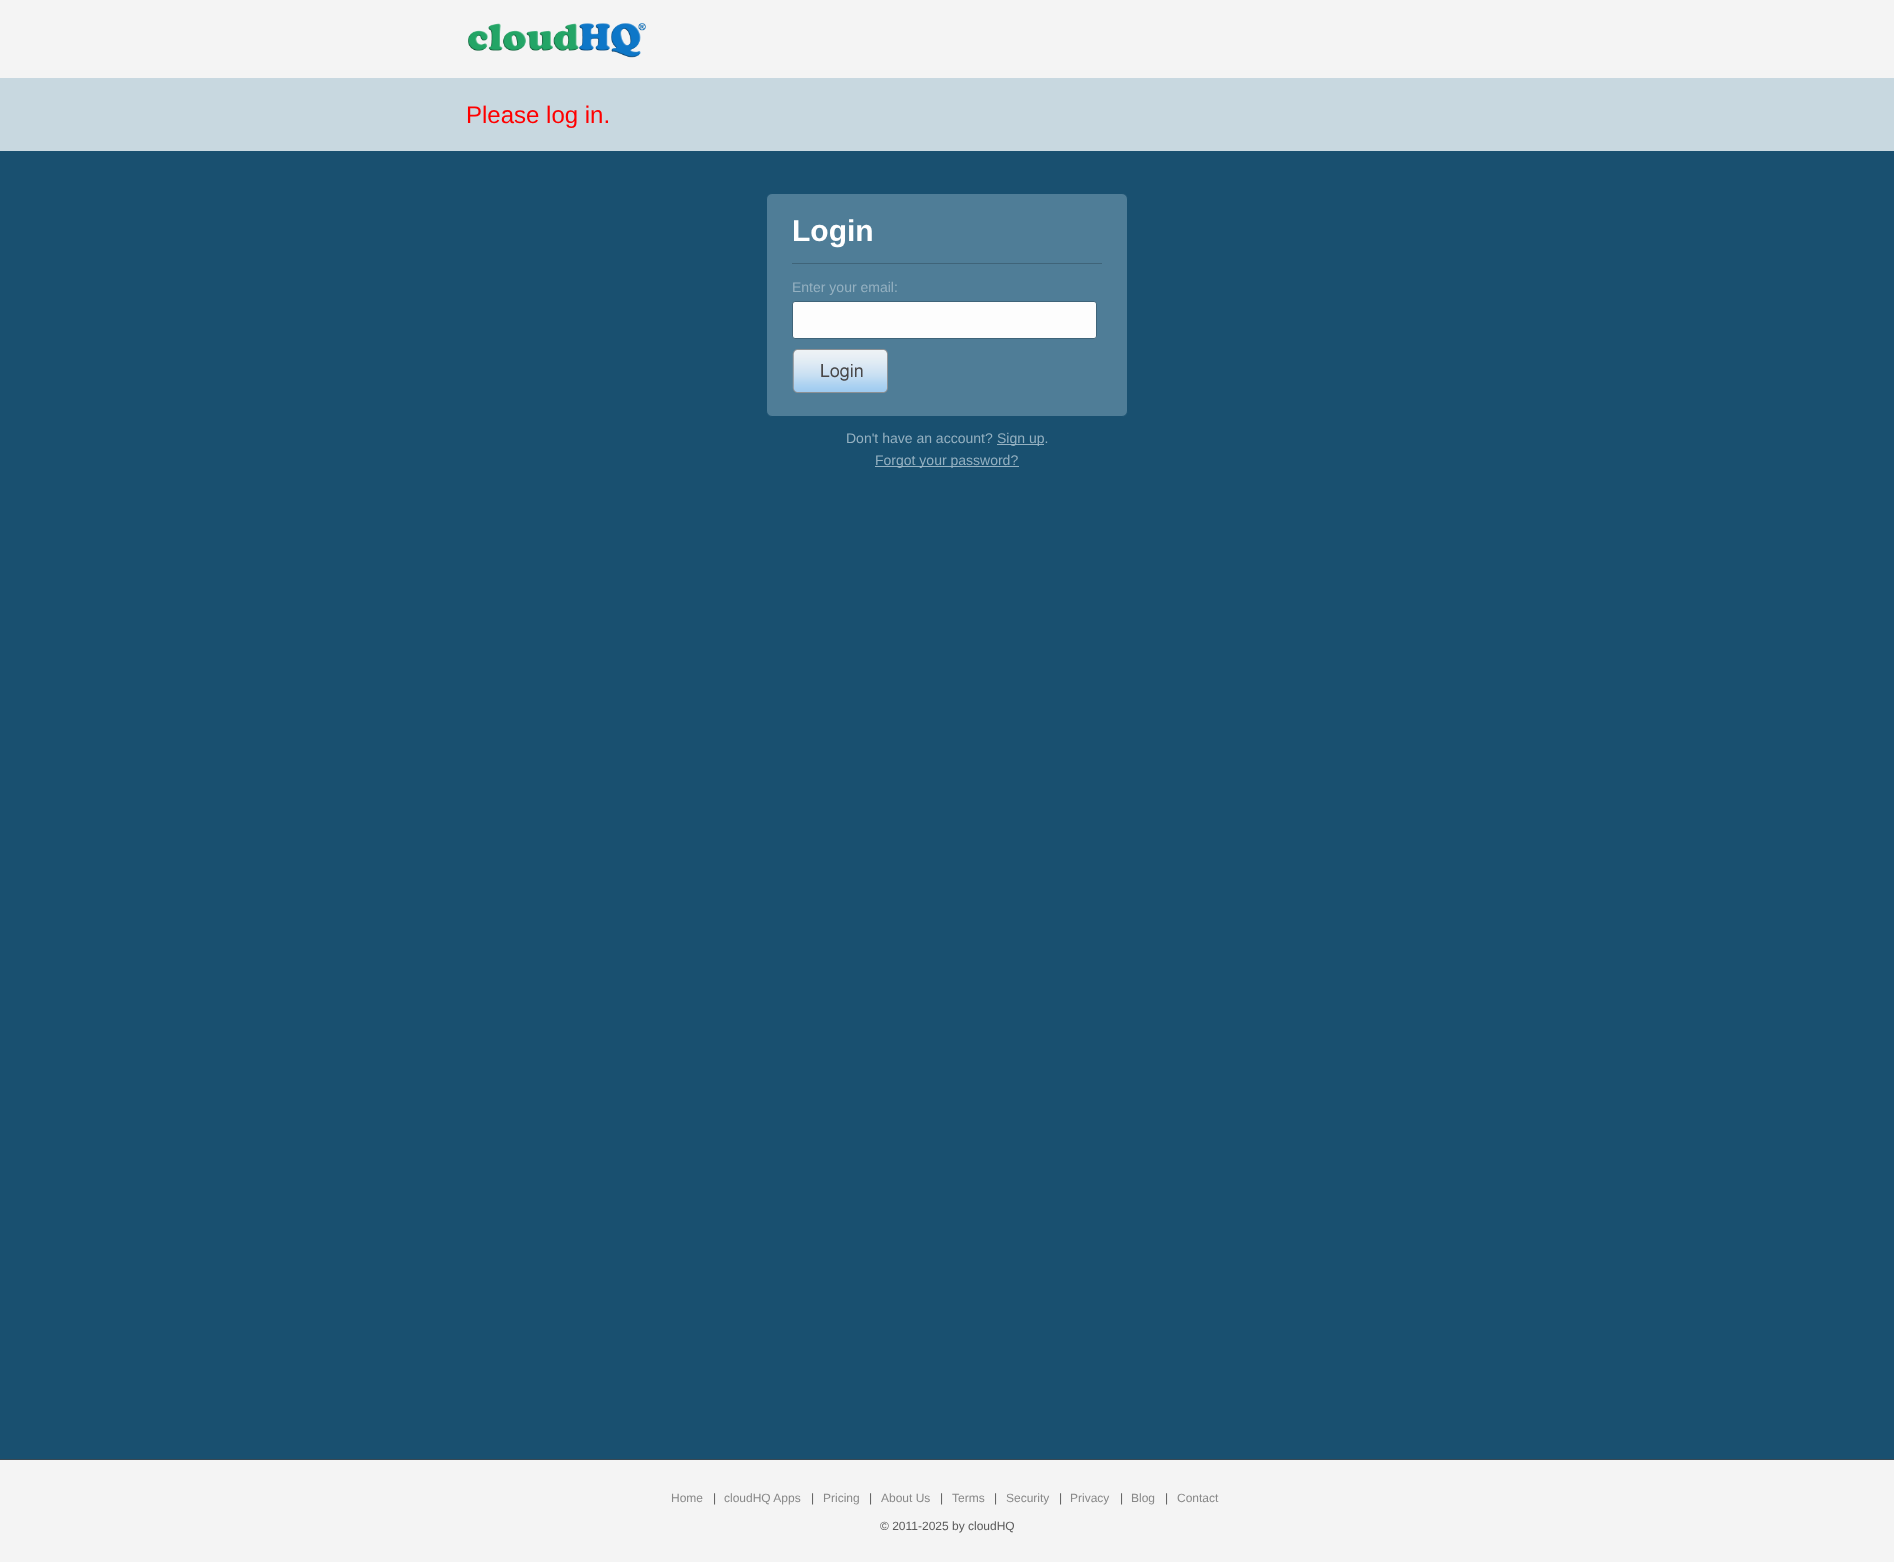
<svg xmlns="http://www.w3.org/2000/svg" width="1894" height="1562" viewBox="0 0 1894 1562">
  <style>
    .t1 { font: 24px Liberation Sans; fill: #f00; }
    .t2 { font: bold 30px Liberation Sans; fill: #fff; }
    .t3 { font: 14px Liberation Sans; fill: #95b1c1; }
    .t4 { font: 12px Liberation Sans; fill: #888; }
    .t5 { font: 12px Liberation Sans; fill: #5a5a5a; }
  </style>
  <rect width="100%" height="100%" fill="#195070"/>
  <rect x="0" y="0" width="1894" height="78" fill="#f4f4f4"/>
  <image x="468" y="23" width="178" height="35" href="images/1.png"/>
  <rect x="0" y="78" width="1894" height="73" fill="#c8d8e0"/>
  <text x="466" y="123" class="t1">Please log in.</text>
  <rect x="766.5" y="193.5" width="361" height="223" rx="5.5" fill="#4f7d97" stroke="#195070"/>
  <text x="792" y="241" class="t2">Login</text>
  <rect x="792" y="263" width="310" height="1" fill="#3f6479"/>
  <text x="792" y="292" class="t3">Enter your email:</text>
  <rect x="792.5" y="301.5" width="304" height="37" rx="2.5" fill="#fdfdfd" stroke="#3f6479"/>
  <image x="792" y="349" width="96" height="44" href="images/2.png"/>
  <text x="846" y="443" class="t3">Don't have an account?</text>
  <rect x="997" y="444" width="47" height="1" fill="#95b1c1"/>
  <text x="997" y="443" class="t3">Sign up.</text>
  <rect x="875" y="466" width="144" height="1" fill="#95b1c1"/>
  <text x="875" y="465" class="t3">Forgot your password?</text>
  <rect x="0" y="1460" width="1894" height="102" fill="#f4f4f4"/>
  <rect x="0" y="1459" width="1894" height="1" fill="#394953"/>
  <text x="671" y="1502" class="t4">Home</text>
  <text x="713" y="1502" class="t5">|</text>
  <text x="724" y="1502" class="t4">cloudHQ Apps</text>
  <text x="811" y="1502" class="t5">|</text>
  <text x="823" y="1502" class="t4">Pricing</text>
  <text x="869" y="1502" class="t5">|</text>
  <text x="881" y="1502" class="t4">About Us</text>
  <text x="940" y="1502" class="t5">|</text>
  <text x="952" y="1502" class="t4">Terms</text>
  <text x="994" y="1502" class="t5">|</text>
  <text x="1006" y="1502" class="t4">Security</text>
  <text x="1059" y="1502" class="t5">|</text>
  <text x="1070" y="1502" class="t4">Privacy</text>
  <text x="1120" y="1502" class="t5">|</text>
  <text x="1131" y="1502" class="t4">Blog</text>
  <text x="1165" y="1502" class="t5">|</text>
  <text x="1177" y="1502" class="t4">Contact</text>
  <text x="880" y="1530" class="t5">© 2011-2025 by cloudHQ</text>
</svg>
